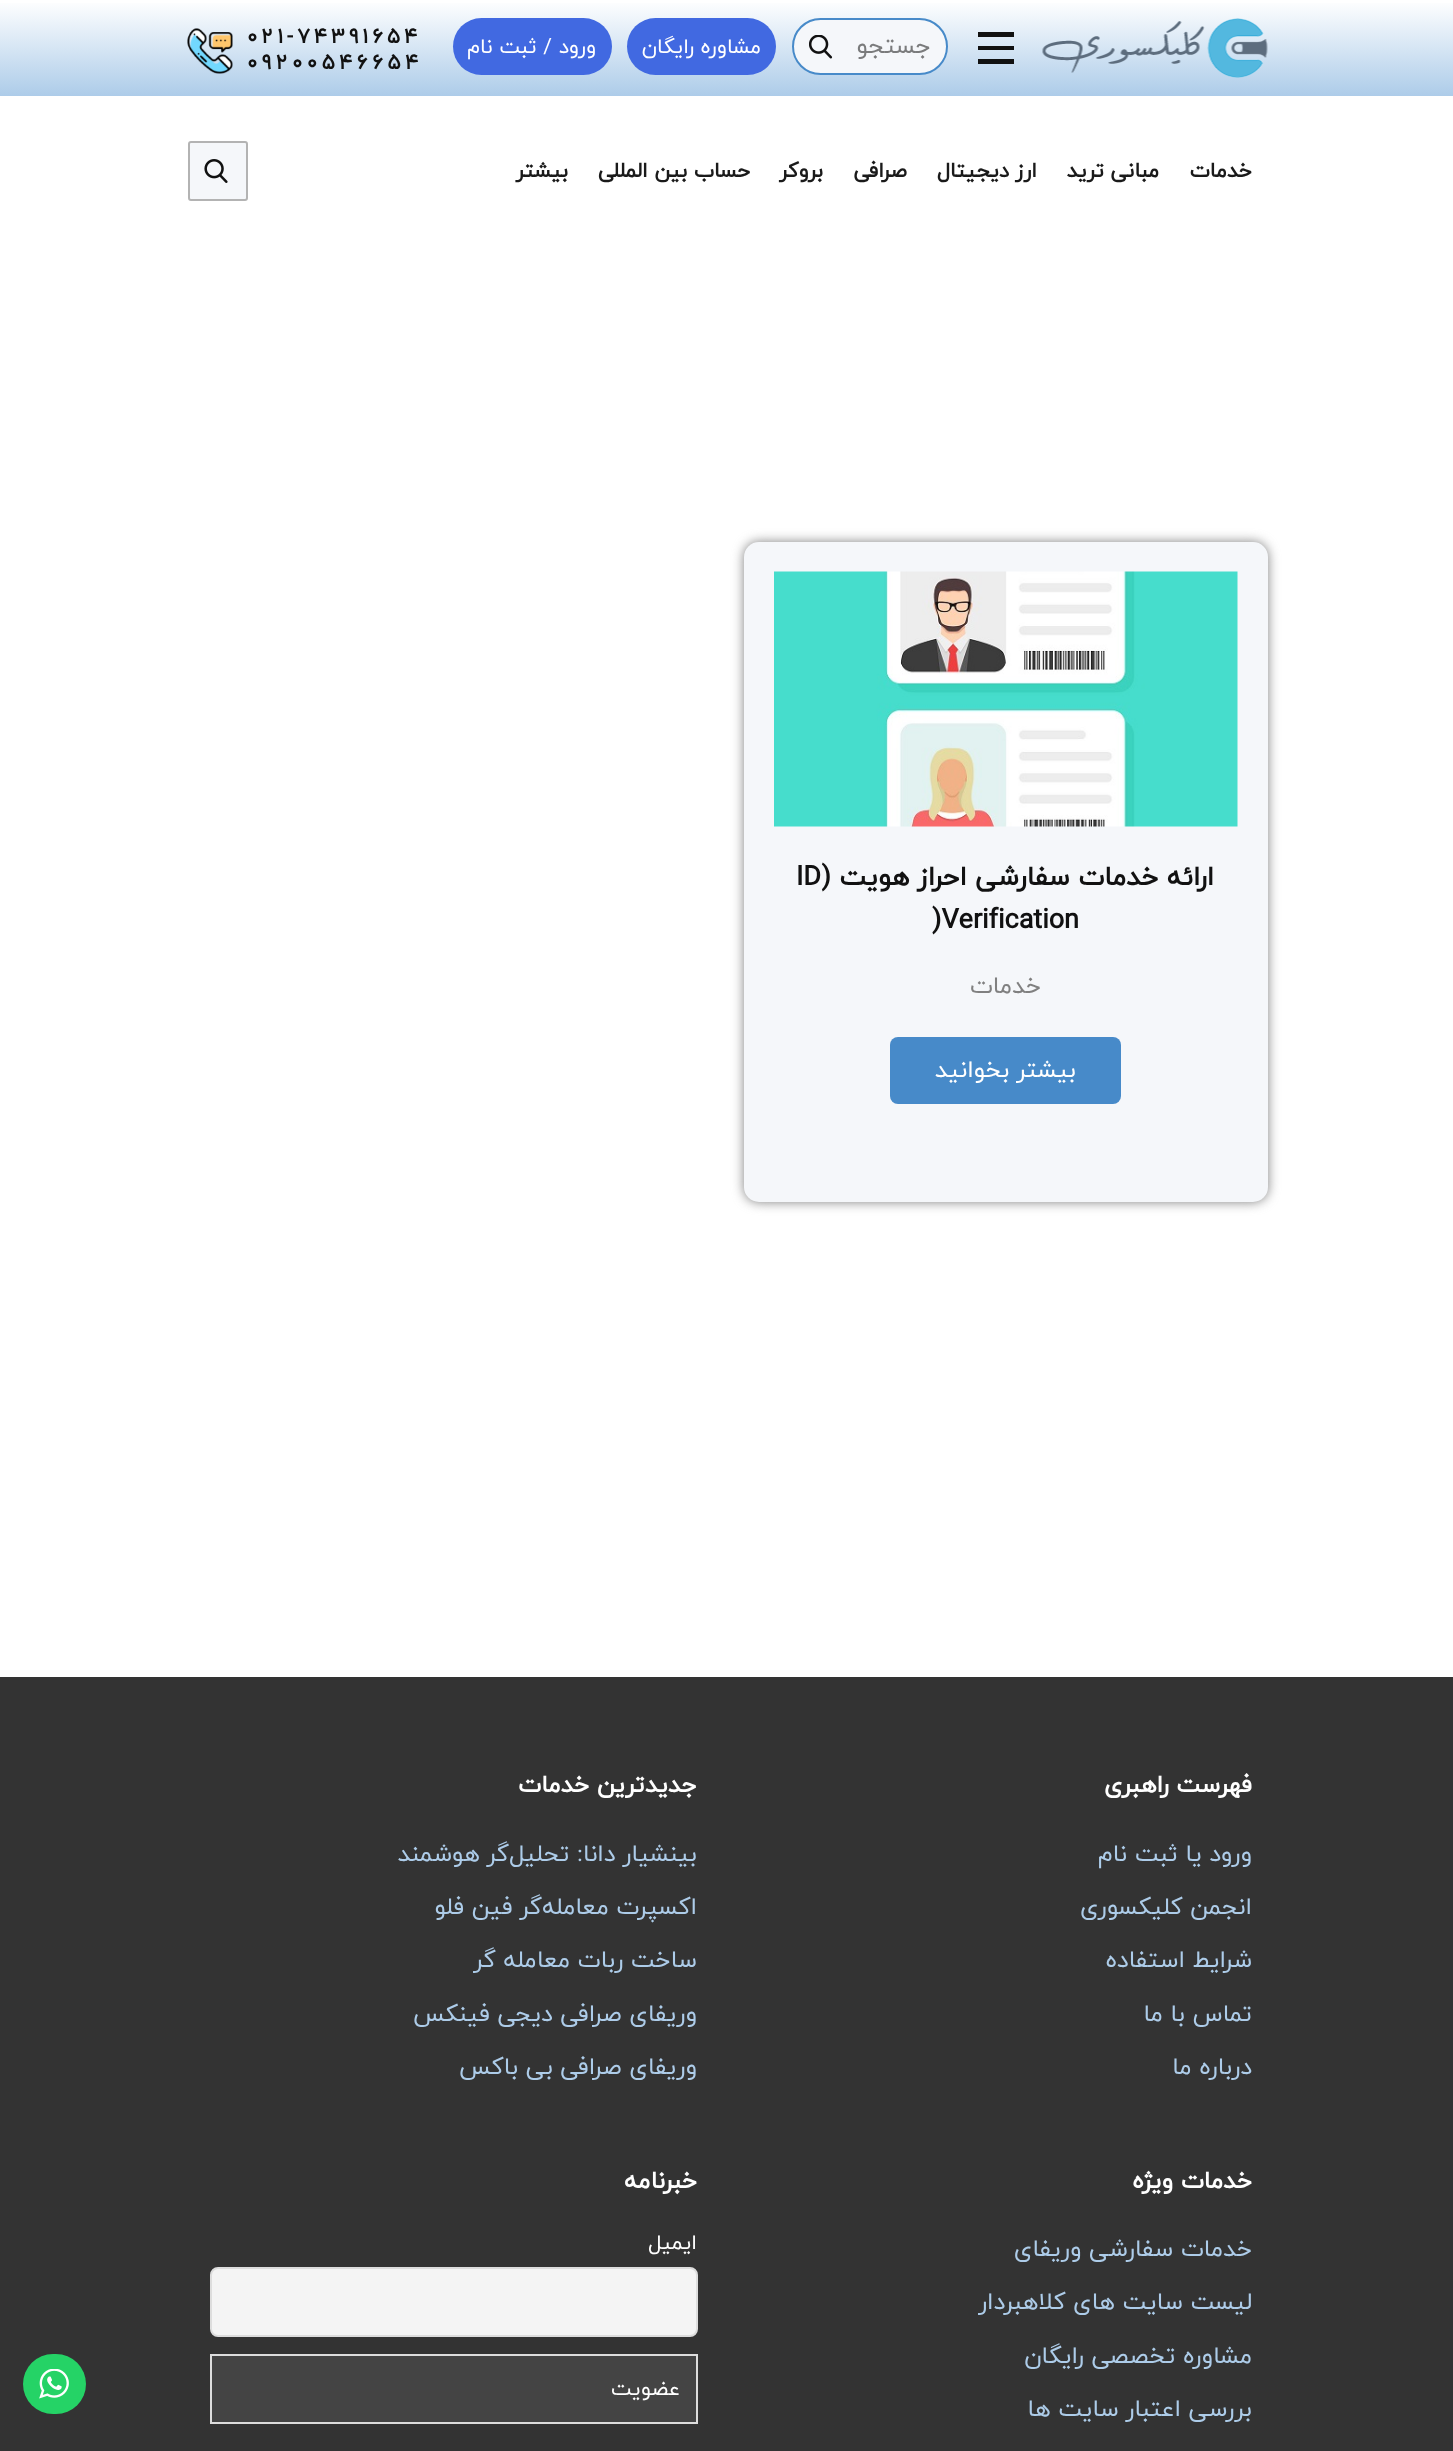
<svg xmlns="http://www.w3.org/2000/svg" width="1453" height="2451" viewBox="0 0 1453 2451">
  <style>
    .t1 { font: 24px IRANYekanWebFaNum; direction: rtl; fill: #7a7b7c; }
    .t2 { font: 21px IRANYekanWebFaNum; direction: rtl; fill: #fff; }
    .t3 { font: bold 21px IRANYekanWebFaNum; letter-spacing: 4px; fill: #111; }
    .t4 { font: bold 21px IRANYekanWebFaNum; letter-spacing: 4.5px; fill: #111; }
    .t5 { font: bold 21px IRANYekanWebFaNum; direction: rtl; fill: #1a1a1a; }
    .t6 { font: bold 27px IRANYekanWebFaNum; direction: rtl; fill: #111; }
    .t7 { font: bold 27px IRANYekanWebFaNum; fill: #111; }
    .t8 { font: 24px IRANYekanWebFaNum; direction: rtl; fill: #808080; }
    .t9 { font: 24px IRANYekanWebFaNum; direction: rtl; fill: #fff; }
    .t10 { font: bold 24px IRANYekanWebFaNum; direction: rtl; fill: #fff; }
    .t11 { font: 24px IRANYekanWebFaNum; direction: rtl; fill: #adcce9; }
  </style>
  <defs>
    <linearGradient id="g1" gradientUnits="userSpaceOnUse" x1="727" y1="0" x2="727" y2="96"><stop offset="0" stop-color="#fff"/><stop offset="1" stop-color="#adcce9"/></linearGradient>
  </defs>
  <rect width="100%" height="100%" fill="#fff"/>
  <rect x="0" y="3" width="1453" height="93" fill="url(#g1)"/>
  <image x="1042" y="18" width="226" height="60" href="images/1.png"/>
  <rect x="978" y="32" width="36" height="5" fill="#111"/>
  <rect x="978" y="46" width="36" height="4" fill="#111"/>
  <rect x="978" y="59" width="36" height="5" fill="#111"/>
  <rect x="793" y="19" width="154" height="55" rx="27.5" fill="#f5f7fa" stroke="#478ac9" stroke-width="2"/>
  <text x="931" y="53" class="t1">جستجو</text>
  <image x="809" y="35" width="24" height="24" href="images/2.png"/>
  <rect x="627" y="18" width="149" height="57" rx="28.5" fill="#4169e1"/>
  <text x="761" y="53" class="t2">مشاوره رایگان</text>
  <rect x="453" y="18" width="159" height="57" rx="28.5" fill="#4169e1"/>
  <text x="596" y="53" class="t2">ورود / ثبت نام</text>
  <text x="247" y="43" class="t3">021-74391654</text>
  <image x="187" y="28" width="46" height="46" href="images/3.png"/>
  <text x="247" y="69" class="t4">09200546654</text>
  <text x="1252" y="177" class="t5">خدمات</text>
  <text x="1159" y="177" class="t5">مبانی ترید</text>
  <text x="1037" y="177" class="t5">ارز دیجیتال</text>
  <text x="907" y="177" class="t5">صرافی</text>
  <text x="823" y="177" class="t5">بروکر</text>
  <text x="750" y="177" class="t5">حساب بین المللی</text>
  <text x="568" y="177" class="t5">بیشتر</text>
  <rect x="189" y="142" width="58" height="58" rx="2" fill="#f5f7fa" stroke="#b3b3b3" stroke-width="2"/>
  <image x="204" y="159" width="24" height="24" href="images/4.png"/>
  <rect x="744" y="542" width="524" height="660" rx="15" fill="#808080" filter="blur(6px)"/>
  <rect x="744" y="542" width="524" height="660" rx="15" fill="#f5f7fa"/>
  <image x="774" y="571" width="464" height="256" href="images/5.png"/>
  <text x="1214" y="885" class="t6">ارائه خدمات سفارشی احراز هویت (</text>
  <text x="796" y="885" class="t7">ID</text>
  <text x="932" y="928" class="t7">)Verification</text>
  <text x="1041" y="993" class="t8">خدمات</text>
  <rect x="890" y="1037" width="231" height="67" rx="8" fill="#478ac9"/>
  <text x="1076" y="1077" class="t9">بیشتر بخوانید</text>
  <rect x="0" y="1677" width="1453" height="774" fill="#333"/>
  <text x="1252" y="1792" class="t10">فهرست راهبری</text>
  <text x="1252" y="1861" class="t11">ورود یا ثبت نام</text>
  <text x="1252" y="1914" class="t11">انجمن کلیکسوری</text>
  <text x="1252" y="1967" class="t11">شرایط استفاده</text>
  <text x="1252" y="2021" class="t11">تماس با ما</text>
  <text x="1252" y="2074" class="t11">درباره ما</text>
  <text x="697" y="1792" class="t10">جدیدترین خدمات</text>
  <text x="697" y="1861" class="t11">بینشیار دانا: تحلیل‌گر هوشمند</text>
  <text x="697" y="1914" class="t11">اکسپرت معامله‌گر فین فلو</text>
  <text x="697" y="1967" class="t11">ساخت ربات معامله گر</text>
  <text x="697" y="2021" class="t11">وریفای صرافی دیجی فینکس</text>
  <text x="697" y="2074" class="t11">وریفای صرافی بی باکس</text>
  <text x="1252" y="2188" class="t10">خدمات ویژه</text>
  <text x="1252" y="2256" class="t11">خدمات سفارشی وریفای</text>
  <text x="1252" y="2309" class="t11">لیست سایت های کلاهبردار</text>
  <text x="1252" y="2363" class="t11">مشاوره تخصصی رایگان</text>
  <text x="1252" y="2416" class="t11">بررسی اعتبار سایت ها</text>
  <text x="697" y="2188" class="t10">خبرنامه</text>
  <text x="697" y="2249" class="t2">ایمیل</text>
  <rect x="211" y="2268" width="486" height="68" rx="7" fill="#f4f4f4" stroke="#ddd" stroke-width="2"/>
  <rect x="211" y="2355" width="486" height="68" fill="#444" stroke="#ddd" stroke-width="2"/>
  <text x="680" y="2395" class="t2">عضویت</text>
  <rect x="23" y="2354" width="63" height="60" rx="30" fill="#25d366"/>
  <image x="39" y="2369" width="30" height="30" href="images/6.png"/>
</svg>
